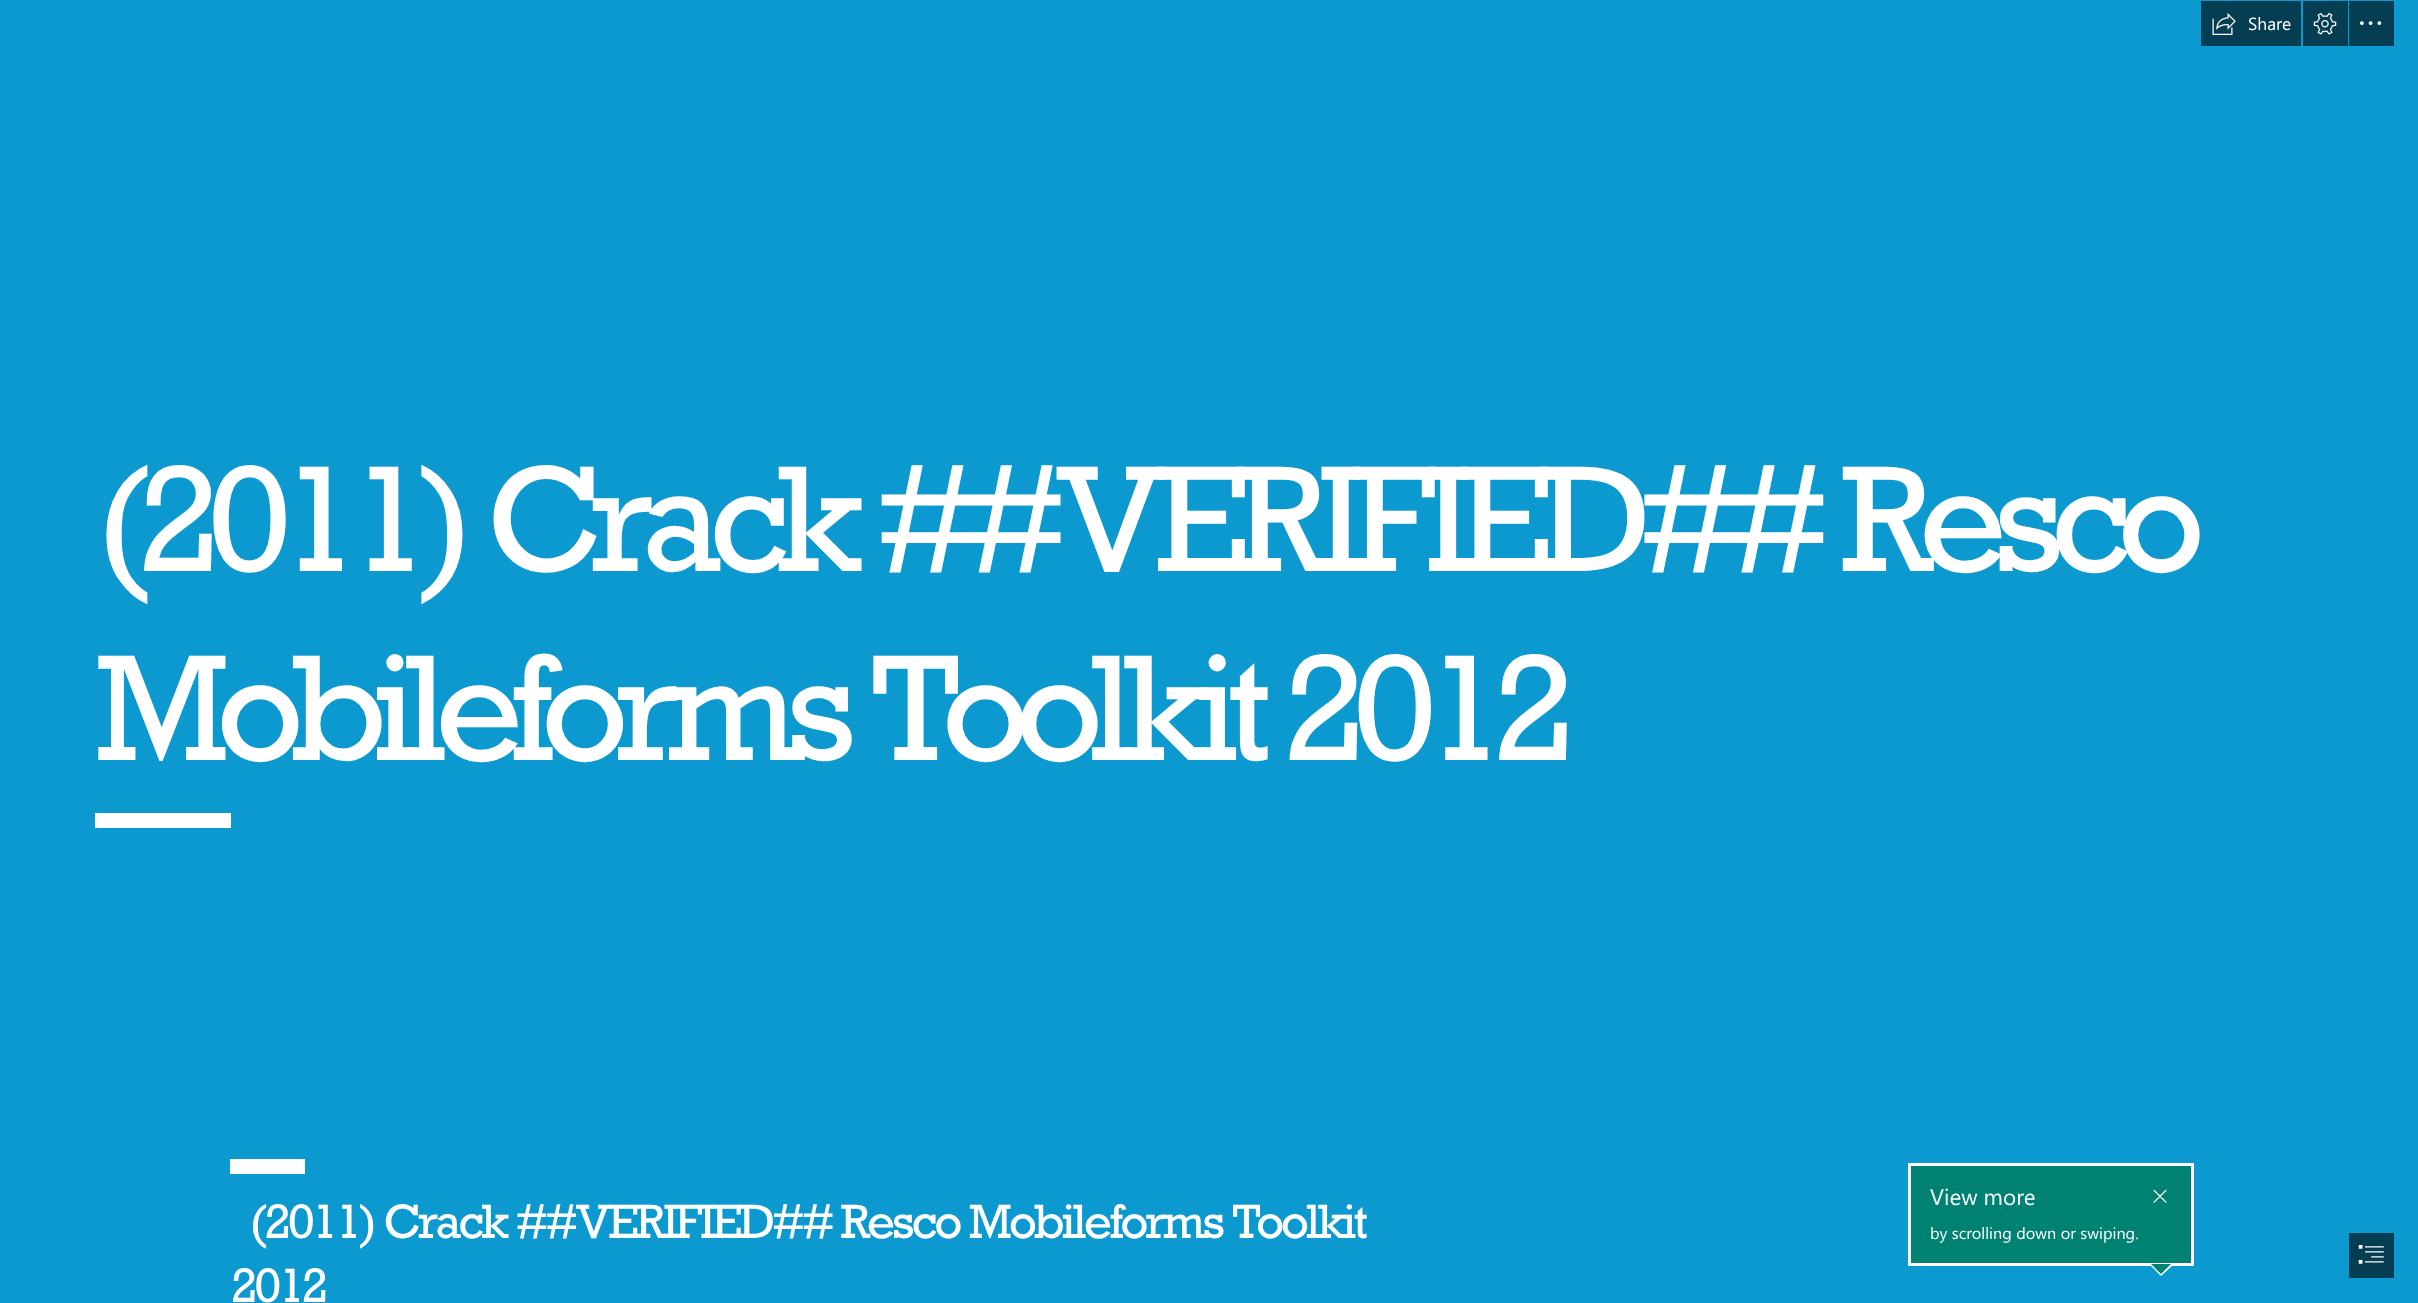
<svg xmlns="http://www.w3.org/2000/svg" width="2418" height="1303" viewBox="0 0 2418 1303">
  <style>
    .t1 { font: 17.5px Segoe UI; fill: #fff; }
    .t2 { font: 141.75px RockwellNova; letter-spacing: -13.4px; fill: #fff; }
    .t3 { font: 45.35px RockwellNova; letter-spacing: -3.02px; fill: #fff; }
    .t4 { font: 22.5px Segoe UI; fill: #fff; }
    .t5 { font: 16.25px Segoe UI; fill: #fff; }
  </style>
  <rect width="100%" height="100%" fill="#0c99cf"/>
  <rect x="2201" y="1" width="100" height="45" fill="#053d53"/>
  <image x="2212" y="13" width="24" height="22" href="images/1.png"/>
  <text x="2248" y="30" class="t1">Share</text>
  <rect x="2303" y="1" width="45" height="45" fill="#053d53"/>
  <image x="2313" y="12" width="24" height="23" href="images/2.png"/>
  <rect x="2349" y="1" width="45" height="45" fill="#053d53"/>
  <image x="2360" y="21" width="22" height="4" href="images/3.png"/>
  <text x="94" y="571" class="t2">(2011) Crack ##VERIFIED## Resco</text>
  <text x="94" y="760" class="t2">Mobileforms Toolkit 2012</text>
  <rect x="95" y="813" width="136" height="15" fill="#fff"/>
  <rect x="230" y="1159" width="75" height="15" fill="#fff"/>
  <text x="249" y="1238" class="t3">(2011) Crack ##VERIFIED## Resco Mobileforms Toolkit</text>
  <text x="231" y="1302" class="t3">2012</text>
  <rect x="1909.5" y="1164.5" width="283" height="100" fill="#008272" stroke="#fff" stroke-width="3"/>
  <text x="1930" y="1205" class="t4">View more</text>
  <text x="1930" y="1239" class="t5">by scrolling down or swiping.</text>
  <image x="2153" y="1189" width="14" height="14" href="images/4.png"/>
  <path d="M2149 1264H2174L2161 1276Z" fill="#fff"/>
  <path d="M2151 1264H2171L2161 1274Z" fill="#008272"/>
  <rect x="2349" y="1233" width="45" height="45" fill="#053d53"/>
  <image x="2358" y="1245" width="26" height="19" href="images/5.png"/>
</svg>
